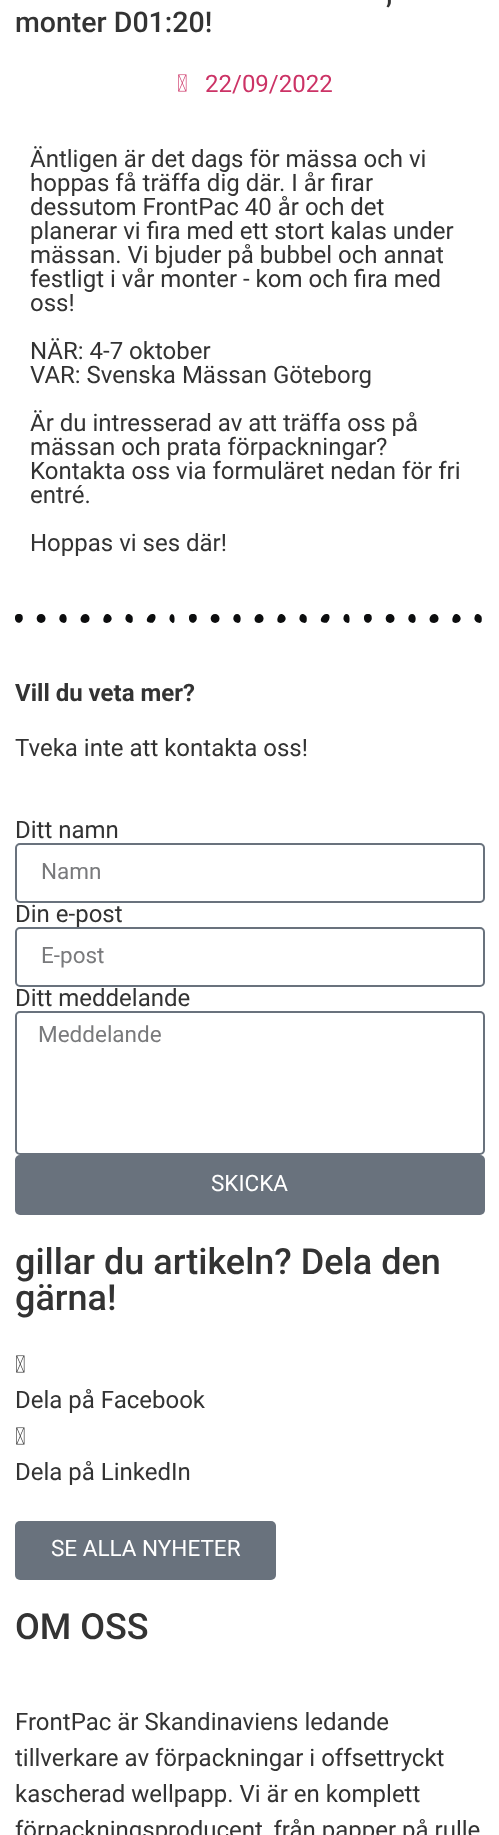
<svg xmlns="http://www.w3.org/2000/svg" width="499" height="1835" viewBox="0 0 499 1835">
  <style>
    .t1 { font: 500 28.5px Roboto; fill: #333; }
    .t2 { font: 24px Roboto; fill: #c36; }
    .t3 { font: 24px Roboto; fill: #333; }
    .t4 { font: bold 24px Roboto; fill: #333; }
    .t5 { font: 22.5px Roboto; fill: #797a7c; }
    .t6 { font: 22.5px Roboto; fill: #fff; }
    .t7 { font: 500 36px Roboto; fill: #333; }
  </style>
  <rect width="100%" height="100%" fill="#fff"/>
  <text x="386" y="3" class="t1">,</text>
  <text x="15" y="32" class="t1">monter D01:20!</text>
  <image x="178" y="74" width="9" height="18" href="images/1.png"/>
  <text x="205" y="92" class="t2">22/09/2022</text>
  <text x="30" y="167" class="t3">Äntligen är det dags för mässa och vi</text>
  <text x="30" y="191" class="t3">hoppas få träffa dig där. I år firar</text>
  <text x="30" y="215" class="t3">dessutom FrontPac 40 år och det</text>
  <text x="30" y="239" class="t3">planerar vi fira med ett stort kalas under</text>
  <text x="30" y="263" class="t3">mässan. Vi bjuder på bubbel och annat</text>
  <text x="30" y="287" class="t3">festligt i vår monter - kom och fira med</text>
  <text x="30" y="311" class="t3">oss!</text>
  <text x="30" y="359" class="t3">NÄR: 4-7 oktober</text>
  <text x="30" y="383" class="t3">VAR: Svenska Mässan Göteborg</text>
  <text x="30" y="431" class="t3">Är du intresserad av att träffa oss på</text>
  <text x="30" y="455" class="t3">mässan och prata förpackningar?</text>
  <text x="30" y="479" class="t3">Kontakta oss via formuläret nedan för fri</text>
  <text x="30" y="503" class="t3">entré.</text>
  <text x="30" y="551" class="t3">Hoppas vi ses där!</text>
  <image x="15" y="614" width="467" height="9" href="images/2.png"/>
  <text x="15" y="701" class="t4">Vill du veta mer?</text>
  <text x="15" y="756" class="t3">Tveka inte att kontakta oss!</text>
  <text x="15" y="838" class="t3">Ditt namn</text>
  <rect x="16" y="844" width="468" height="58" rx="4" fill="none" stroke="#69727d" stroke-width="2"/>
  <text x="41" y="879" class="t5">Namn</text>
  <text x="15" y="922" class="t3">Din e-post</text>
  <rect x="16" y="928" width="468" height="58" rx="4" fill="none" stroke="#69727d" stroke-width="2"/>
  <text x="41" y="963" class="t5">E-post</text>
  <text x="15" y="1006" class="t3">Ditt meddelande</text>
  <rect x="16" y="1012" width="468" height="142" rx="4" fill="none" stroke="#69727d" stroke-width="2"/>
  <text x="38" y="1042" class="t5">Meddelande</text>
  <rect x="15" y="1155" width="470" height="60" rx="5" fill="#69727d"/>
  <text x="211" y="1191" class="t6">SKICKA</text>
  <text x="15" y="1274" class="t7">gillar du artikeln? Dela den</text>
  <text x="15" y="1310" class="t7">gärna!</text>
  <image x="16" y="1355" width="9" height="18" href="images/3.png"/>
  <text x="15" y="1408" class="t3">Dela på Facebook</text>
  <image x="16" y="1427" width="9" height="18" href="images/3.png"/>
  <text x="15" y="1480" class="t3">Dela på LinkedIn</text>
  <rect x="15" y="1521" width="261" height="59" rx="5" fill="#69727d"/>
  <text x="51" y="1556" class="t6">SE ALLA NYHETER</text>
  <text x="15" y="1639" class="t7">OM OSS</text>
  <text x="15" y="1730" class="t3">FrontPac är Skandinaviens ledande</text>
  <text x="15" y="1766" class="t3">tillverkare av förpackningar i offsettryckt</text>
  <text x="15" y="1802" class="t3">kascherad wellpapp. Vi är en komplett</text>
  <text x="15" y="1838" class="t3">förpackningsproducent, från papper på rulle</text>
</svg>
